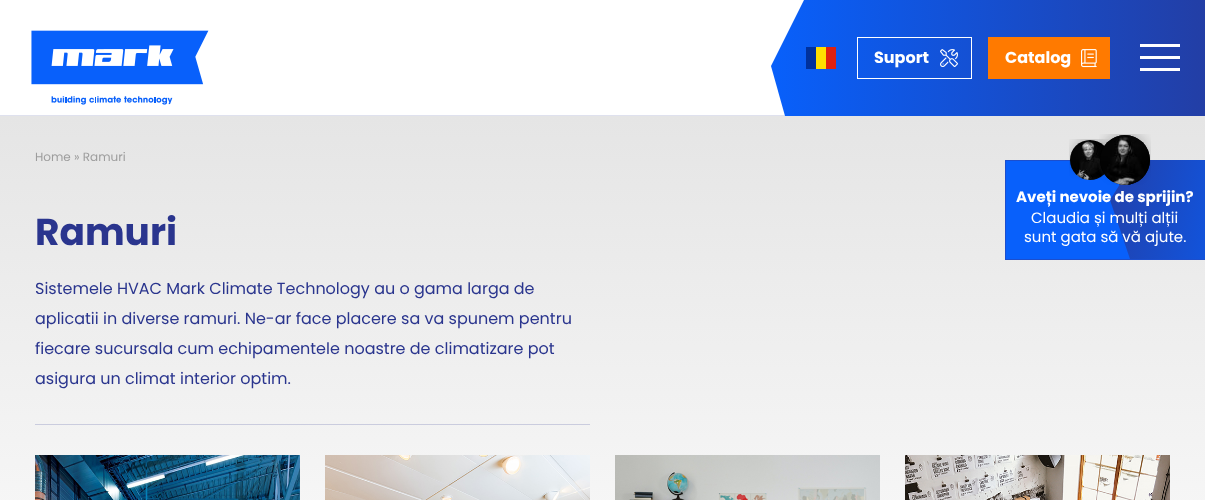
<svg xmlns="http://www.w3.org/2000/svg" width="1205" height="500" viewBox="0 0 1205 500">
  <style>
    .t1 { font: bold 16px Poppins; fill: #fff; }
    .t2 { font: 12px Poppins; fill: #9d9d9d; }
    .t3 { font: bold 37.5px Poppins; fill: #2a358e; }
    .t4 { font: 16px Poppins; fill: #2a358e; }
    .t5 { font: bold 15px Poppins; fill: #fff; }
    .t6 { font: 15px Poppins; fill: #fff; }
  </style>
  <defs>
    <linearGradient id="g1" gradientUnits="userSpaceOnUse" x1="771" y1="58" x2="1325" y2="58"><stop offset="0" stop-color="#0860fb"/><stop offset="1" stop-color="#2a358e"/></linearGradient>
    <linearGradient id="g2" gradientUnits="userSpaceOnUse" x1="603" y1="116" x2="603" y2="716"><stop offset="0" stop-color="#e5e5e5"/><stop offset="1" stop-color="#fff"/></linearGradient>
    <clipPath id="clip1"><rect x="1109" y="160" width="96" height="100"/></clipPath>
    <linearGradient id="g3" gradientUnits="userSpaceOnUse" x1="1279" y1="259" x2="1034" y2="203"><stop offset="0" stop-color="#0860fb"/><stop offset="1" stop-color="#2a358e"/></linearGradient>
  </defs>
  <rect width="100%" height="100%" fill="#fff"/>
  <image x="31" y="30" width="178" height="75" href="images/1.png"/>
  <rect x="0" y="115" width="785" height="1" fill="#dfe1ee"/>
  <path d="M804 0H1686V116H785L771 66Z" fill="url(#g1)"/>
  <rect x="806" y="47" width="10" height="22" fill="#00319c"/>
  <rect x="816" y="47" width="10" height="22" fill="#ffde00"/>
  <rect x="826" y="47" width="10" height="22" fill="#de2110"/>
  <rect x="857.5" y="37.5" width="114" height="41" fill="none" stroke="#fff"/>
  <text x="874" y="63" class="t1">Suport</text>
  <image x="940" y="49" width="18" height="19" href="images/2.png"/>
  <rect x="988" y="37" width="122" height="42" fill="#ff7a00"/>
  <text x="1005" y="63" class="t1">Catalog</text>
  <image x="1081" y="49" width="16" height="19" href="images/3.png"/>
  <rect x="1140" y="56" width="40" height="3" fill="#fff"/>
  <rect x="1140" y="44" width="40" height="3" fill="#fff"/>
  <rect x="1140" y="68" width="40" height="3" fill="#fff"/>
  <rect x="0" y="116" width="1205" height="384" fill="url(#g2)"/>
  <text x="35" y="161" class="t2">Home » Ramuri</text>
  <rect x="35" y="424" width="555" height="1" fill="#caccde"/>
  <text x="35" y="245" class="t3">Ramuri</text>
  <text x="35" y="294" class="t4">Sistemele HVAC Mark Climate Technology au o gama larga de</text>
  <text x="35" y="324" class="t4">aplicatii in diverse ramuri. Ne-ar face placere sa va spunem pentru</text>
  <text x="35" y="354" class="t4">fiecare sucursala cum echipamentele noastre de climatizare pot</text>
  <text x="35" y="384" class="t4">asigura un climat interior optim.</text>
  <image x="35" y="455" width="265" height="45" href="images/4.png"/>
  <image x="325" y="455" width="265" height="45" href="images/5.png"/>
  <image x="615" y="455" width="265" height="45" href="images/6.png"/>
  <image x="905" y="455" width="265" height="45" href="images/7.png"/>
  <rect x="1006" y="161" width="124" height="98" fill="#0860fb"/>
  <rect x="1005.5" y="160.5" width="199" height="99" fill="none" stroke="#1c4ecc"/>
  <g clip-path="url(#clip1)">
    <path d="M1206 48L1110 200L1130 259H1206Z" fill="url(#g3)"/>
  </g>
  <image x="1069" y="139" width="41" height="41" href="images/8.png"/>
  <circle cx="1125" cy="160" r="25" fill="#000"/>
  <image x="1099" y="134" width="52" height="51" href="images/9.png"/>
  <text x="1016" y="202" class="t5">Aveți nevoie de sprijin?</text>
  <text x="1031" y="223" class="t6">Claudia și mulți alții</text>
  <text x="1024" y="242" class="t6">sunt gata să vă ajute.</text>
</svg>
